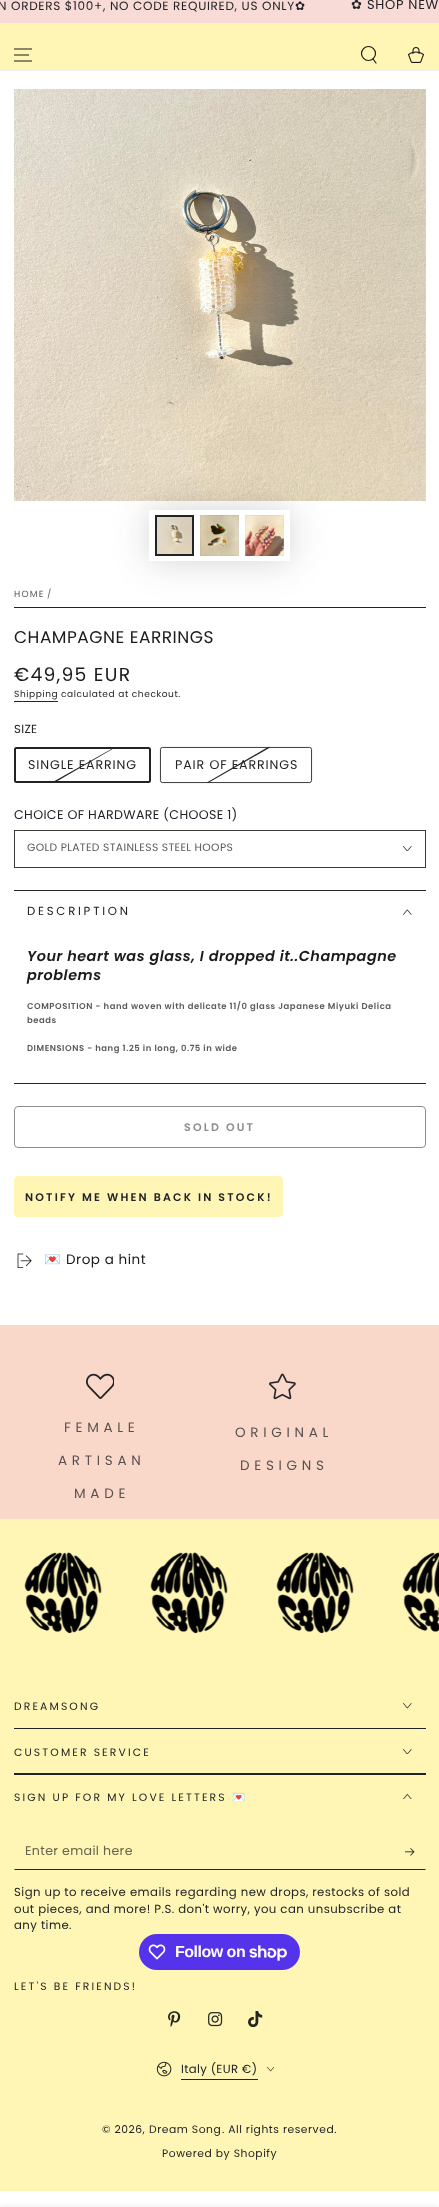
<svg xmlns="http://www.w3.org/2000/svg" width="439" height="2207" viewBox="0 0 439 2207">
  <style>
    .t1 { font: 12px Poppins; letter-spacing: 0.7px; fill: #212326; }
    .t2 { font: 12px DejaVu Sans; letter-spacing: 0.7px; fill: #212326; }
    .t3 { font: 13px DejaVu Sans; letter-spacing: 0.7px; fill: #212326; }
    .t4 { font: 13px Poppins; letter-spacing: 0.7px; fill: #212326; }
    .t5 { font: 9px Poppins; letter-spacing: 1.25px; fill: #595a5c; }
    .t6 { font: 17px Poppins; letter-spacing: 0.5px; fill: #1a1b18; }
    .t7 { font: 18.75px Poppins; letter-spacing: 1.25px; fill: #1a1b18; }
    .t8 { font: 9px Poppins; letter-spacing: 0.6px; fill: #1a1b18; }
    .t9 { font: 9px Poppins; letter-spacing: 0.6px; fill: #212326; }
    .t10 { font: 11.7px Poppins; letter-spacing: 0.35px; fill: #212326; }
    .t11 { font: 12.6px Poppins; letter-spacing: 0.9px; fill: #212326; }
    .t12 { font: 12.6px Poppins; letter-spacing: 0.35px; fill: #212326; }
    .t13 { font: 10.75px Poppins; letter-spacing: 0.35px; fill: #595a5c; }
    .t14 { font: 11.7px Poppins; letter-spacing: 2.75px; fill: #212326; }
    .t15 { font: italic 600 14.45px Poppins; letter-spacing: 0.5px; fill: #1a1b18; }
    .t16 { font: 600 8.45px Poppins; letter-spacing: 0.55px; fill: #595a5c; }
    .t17 { font: 600 11px Poppins; letter-spacing: 2.2px; fill: #8d8d8c; }
    .t18 { font: 600 11px Poppins; letter-spacing: 2.2px; fill: #212326; }
    .t19 { font: 13.5px Noto Color Emoji; letter-spacing: 0.55px; fill: #1a1b18; }
    .t20 { font: 13.5px Poppins; letter-spacing: 0.55px; fill: #1a1b18; }
    .t21 { font: 13.5px Poppins; letter-spacing: 0.55px; fill: #57504f; }
    .t22 { font: 10.75px Poppins; letter-spacing: 2.15px; fill: #212326; }
    .t23 { font: 10.75px Noto Color Emoji; letter-spacing: 2.15px; fill: #212326; }
    .t24 { font: 12.6px Poppins; letter-spacing: 0.35px; fill: #65644e; }
    .t25 { font: 11.7px Poppins; letter-spacing: 0.45px; fill: #212326; }
    .t26 { font: bold 16px Liberation Sans; letter-spacing: -0.5px; fill: #fff; }
    .t27 { font: 10.75px Poppins; letter-spacing: 0.55px; fill: #212326; }
  </style>
  <defs>
    <clipPath id="clip1"><path d="M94 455H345V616H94ZM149 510H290V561H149Z" clip-rule="evenodd"/></clipPath>
  </defs>
  <rect width="100%" height="100%" fill="#fff"/>
  <rect x="0" y="0" width="439" height="23" fill="#f8dbd6"/>
  <text x="-2" y="10" class="t1">N ORDERS $100+, NO CODE REQUIRED, US ONLY</text>
  <text x="295" y="10" class="t2">✿</text>
  <text x="351" y="9" class="t3">✿</text>
  <text x="367" y="9" class="t4">SHOP NEW</text>
  <rect x="0" y="70" width="439" height="1" fill="#f2f2f4"/>
  <rect x="0" y="23" width="439" height="47" fill="#fff6b6"/>
  <path d="M14 61H32M14 55H29M14 49H32" fill="none" stroke="#1a1b18"/>
  <circle cx="368.5" cy="53.5" r="7" fill="none" stroke="#1a1b18" stroke-width="1.2"/>
  <path d="M373 59L376 63" fill="none" stroke="#1a1b18" stroke-width="1.2" stroke-linecap="round"/>
  <image x="407" y="47" width="18" height="16" href="images/1.png"/>
  <image x="14" y="89" width="412" height="412" href="images/2.png"/>
  <rect x="14" y="607" width="412" height="1" fill="#232621"/>
  <g clip-path="url(#clip1)">
    <rect x="149" y="510" width="141" height="51" fill="#21232633" filter="blur(18px)"/>
  </g>
  <image x="157" y="517" width="35" height="37" href="images/3.png"/>
  <rect x="156" y="516" width="37" height="39" fill="none" stroke="#212326" stroke-width="2"/>
  <image x="200" y="515" width="39" height="41" href="images/4.png"/>
  <rect x="200.45" y="515.45" width="38.1" height="40.1" fill="none" stroke="#2123260a" stroke-width="0.9"/>
  <image x="245" y="515" width="39" height="41" href="images/5.png"/>
  <rect x="245.45" y="515.45" width="38.1" height="40.1" fill="none" stroke="#2123260a" stroke-width="0.9"/>
  <text x="14" y="597" class="t5">HOME</text>
  <text x="47" y="597" class="t5">/</text>
  <text x="14" y="643" class="t6">CHAMPAGNE EARRINGS</text>
  <text x="14" y="681" class="t7">€49,95 EUR</text>
  <text x="14" y="697" class="t8">Shipping</text>
  <rect x="14" y="701" width="44" height="1" fill="#232621"/>
  <text x="61" y="697" class="t9">calculated at checkout.</text>
  <text x="14" y="733" class="t10">SIZE</text>
  <rect x="15" y="748" width="135" height="34" rx="1.5" fill="none" stroke="#212326" stroke-width="2"/>
  <text x="28" y="769" class="t11">SINGLE EARRING</text>
  <path d="M116 747L54 783H51L115 747Z" fill="#232621"/>
  <rect x="160.45" y="747.45" width="151.1" height="35.1" rx="2.05" fill="none" stroke="#232621" stroke-width="0.9"/>
  <text x="175" y="769" class="t11">PAIR OF EARRINGS</text>
  <path d="M271 747L208 783H206L268 747Z" fill="#232621"/>
  <text x="14" y="819" class="t12">CHOICE OF HARDWARE (CHOOSE 1)</text>
  <rect x="14.45" y="830.45" width="411.1" height="37.1" fill="none" stroke="#232621" stroke-width="0.9"/>
  <text x="27" y="851" class="t13">GOLD PLATED STAINLESS STEEL HOOPS</text>
  <image x="403" y="846" width="9" height="5" href="images/6.png"/>
  <rect x="14" y="890" width="412" height="1" fill="#232621"/>
  <rect x="14" y="1083" width="412" height="1" fill="#232621"/>
  <text x="27" y="915" class="t14">DESCRIPTION</text>
  <image x="403" y="909" width="9" height="6" href="images/7.png"/>
  <text x="27" y="961" class="t15">Your heart was glass, I dropped it..Champagne</text>
  <text x="27" y="980" class="t15">problems</text>
  <text x="27" y="1009" class="t16">COMPOSITION - hand woven with delicate 11/0 glass Japanese Miyuki Delica</text>
  <text x="27" y="1023" class="t16">beads</text>
  <text x="27" y="1051" class="t16">DIMENSIONS - hang 1.25 in long, 0.75 in wide</text>
  <rect x="14.5" y="1106.5" width="411" height="41" rx="3.5" fill="none" stroke="#8d8d8c"/>
  <text x="184" y="1131" class="t17">SOLD OUT</text>
  <rect x="14.5" y="1176.5" width="268" height="40" rx="3.5" fill="#fff6b6" stroke="#fff6b6"/>
  <text x="25" y="1201" class="t18">NOTIFY ME WHEN BACK IN STOCK!</text>
  <image x="17" y="1253" width="15" height="15" href="images/8.png"/>
  <text x="44" y="1264" class="t19">💌</text>
  <text x="66" y="1264" class="t20">Drop a hint</text>
  <rect x="0" y="1325" width="439" height="194" fill="#fad8c9"/>
  <image x="86" y="1373" width="28" height="26" href="images/9.png"/>
  <text x="64" y="1432" class="t21">F E M A L E</text>
  <text x="58" y="1465" class="t21">A R T I S A N</text>
  <text x="74" y="1498" class="t21">M A D E</text>
  <image x="269" y="1373" width="27" height="27" href="images/10.png"/>
  <text x="235" y="1437" class="t21">O R I G I N A L</text>
  <text x="240" y="1470" class="t21">D E S I G N S</text>
  <rect x="0" y="1519" width="439" height="672" fill="#fff6b6"/>
  <image x="24" y="1552" width="78" height="82" href="images/11.png"/>
  <image x="150" y="1552" width="78" height="82" href="images/11.png"/>
  <image x="276" y="1552" width="78" height="82" href="images/11.png"/>
  <image x="402" y="1552" width="37" height="80" href="images/12.png"/>
  <rect x="14" y="1728" width="412" height="1" fill="#212326"/>
  <text x="14" y="1710" class="t22">DREAMSONG</text>
  <image x="403" y="1703" width="9" height="6" href="images/13.png"/>
  <rect x="14" y="1773" width="412" height="2" fill="#212326"/>
  <text x="14" y="1756" class="t22">CUSTOMER SERVICE</text>
  <image x="403" y="1749" width="9" height="5" href="images/14.png"/>
  <text x="14" y="1801" class="t22">SIGN UP FOR MY LOVE LETTERS</text>
  <text x="232" y="1801" class="t23">💌</text>
  <image x="403" y="1794" width="9" height="5" href="images/15.png"/>
  <path d="M426 1870H14L15 1869H425Z" fill="#212326"/>
  <text x="25" y="1855" class="t24">Enter email here</text>
  <image x="405" y="1848" width="10" height="8" href="images/16.png"/>
  <text x="14" y="1896" class="t25">Sign up to receive emails regarding new drops, restocks of sold</text>
  <text x="14" y="1913" class="t25">out pieces, and more! P.S. don't worry, you can unsubscribe at</text>
  <text x="14" y="1929" class="t25">any time.</text>
  <rect x="139" y="1934" width="161" height="36" rx="18" fill="#5433eb"/>
  <image x="148" y="1944" width="18" height="16" href="images/17.png"/>
  <text x="175" y="1957" class="t26">Follow on</text>
  <image x="249" y="1945" width="38" height="16" href="images/18.png"/>
  <text x="14" y="1990" class="t22">LET'S BE FRIENDS!</text>
  <image x="168" y="2011" width="13" height="16" href="images/19.png"/>
  <image x="208" y="2012" width="15" height="15" href="images/20.png"/>
  <image x="248" y="2011" width="15" height="16" href="images/21.png"/>
  <image x="156" y="2061" width="16" height="16" href="images/22.png"/>
  <rect x="181" y="2079" width="77" height="1" fill="#212326"/>
  <text x="181" y="2073" class="t10">Italy (EUR €)</text>
  <image x="267" y="2066" width="7" height="6" href="images/23.png"/>
  <text x="102" y="2133" class="t27">© 2026,</text>
  <text x="149" y="2133" class="t27">Dream Song</text>
  <text x="222" y="2133" class="t27">. All rights reserved.</text>
  <text x="162" y="2157" class="t27">Powered by Shopify</text>
  <rect x="0" y="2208" width="439" height="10" fill="#21232626" filter="blur(3.5px)"/>
</svg>
